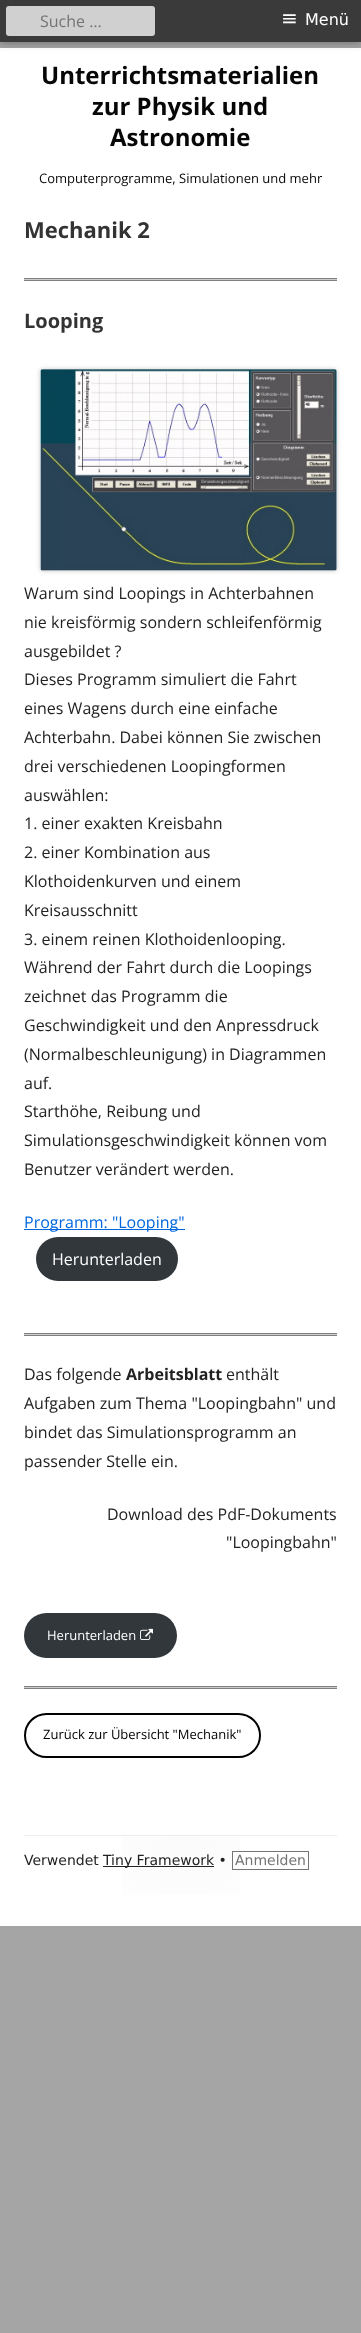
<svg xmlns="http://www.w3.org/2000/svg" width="361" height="2333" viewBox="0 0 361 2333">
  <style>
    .t1 { font: 16px Open Sans; fill: #747474; }
    .t2 { font: 20px DejaVu Sans; fill: #fff; }
    .t3 { font: 16px DejaVu Sans; fill: #fff; }
    .t4 { font: bold 24px Open Sans; fill: #070707; }
    .t5 { font: 13px Open Sans; fill: #070707; }
    .t6 { font: bold 22px Open Sans; fill: #333; }
    .t7 { font: bold 20px Open Sans; fill: #333; }
    .t8 { font: 16px Open Sans; fill: #222; }
    .t9 { font: 16px Open Sans; fill: #0066df; }
    .t10 { font: 16px Open Sans; fill: #fff; }
    .t11 { font: bold 16px Open Sans; fill: #222; }
    .t12 { font: 13px Open Sans; fill: #fff; }
    .t13 { font: 13px Open Sans; fill: #000; }
    .t14 { font: 14px DejaVu Sans; fill: #222; }
    .t15 { font: 14px DejaVu Sans; fill: #747474; }
  </style>
  <defs>
    <radialGradient id="g1" gradientUnits="userSpaceOnUse" cx="181" cy="1836" r="157"><stop offset="0" stop-color="#fbfbfb"/><stop offset="1" stop-color="#fff"/></radialGradient>
  </defs>
  <rect width="100%" height="100%" fill="#a5a5a5"/>
  <rect x="0" y="48" width="361" height="1878" fill="#fff"/>
  <rect x="0" y="0" width="361" height="42" fill="#00000066" filter="blur(5px)"/>
  <rect x="0" y="0" width="361" height="42" fill="#3a3a3a"/>
  <rect x="6" y="6" width="149" height="30" rx="3" fill="#d0d0d0"/>
  <text x="40" y="27" class="t1">Suche …</text>
  <text x="281" y="25" class="t2">≡</text>
  <text x="305" y="25" class="t3">Menü</text>
  <text x="41" y="84" class="t4">Unterrichtsmaterialien</text>
  <text x="92" y="115" class="t4">zur Physik und</text>
  <text x="110" y="146" class="t4">Astronomie</text>
  <text x="39" y="183" class="t5">Computerprogramme, Simulationen und mehr</text>
  <text x="24" y="238" class="t6">Mechanik 2</text>
  <rect x="24" y="279" width="313" height="1" fill="#ccc"/>
  <rect x="24" y="278" width="313" height="1" fill="#808080"/>
  <rect x="24" y="280" width="313" height="1" fill="#808080"/>
  <text x="24" y="328" class="t7">Looping</text>
  <rect x="40" y="369" width="297" height="202" rx="3" fill="#00000033" filter="blur(2px)"/>
  <image x="40" y="369" width="297" height="202" href="images/1.png"/>
  <text x="24" y="599" class="t8">Warum sind Loopings in Achterbahnen</text>
  <text x="24" y="628" class="t8">nie kreisförmig sondern schleifenförmig</text>
  <text x="24" y="657" class="t8">ausgebildet ?</text>
  <text x="24" y="685" class="t8">Dieses Programm simuliert die Fahrt</text>
  <text x="24" y="714" class="t8">eines Wagens durch eine einfache</text>
  <text x="24" y="743" class="t8">Achterbahn. Dabei können Sie zwischen</text>
  <text x="24" y="772" class="t8">drei verschiedenen Loopingformen</text>
  <text x="24" y="801" class="t8">auswählen:</text>
  <text x="24" y="829" class="t8">1. einer exakten Kreisbahn</text>
  <text x="24" y="858" class="t8">2. einer Kombination aus</text>
  <text x="24" y="887" class="t8">Klothoidenkurven und einem</text>
  <text x="24" y="916" class="t8">Kreisausschnitt</text>
  <text x="24" y="945" class="t8">3. einem reinen Klothoidenlooping.</text>
  <text x="24" y="973" class="t8">Während der Fahrt durch die Loopings</text>
  <text x="24" y="1002" class="t8">zeichnet das Programm die</text>
  <text x="24" y="1031" class="t8">Geschwindigkeit und den Anpressdruck</text>
  <text x="24" y="1060" class="t8">(Normalbeschleunigung) in Diagrammen</text>
  <text x="24" y="1089" class="t8">auf.</text>
  <text x="24" y="1117" class="t8">Starthöhe, Reibung und</text>
  <text x="24" y="1146" class="t8">Simulationsgeschwindigkeit können vom</text>
  <text x="24" y="1175" class="t8">Benutzer verändert werden.</text>
  <rect x="24" y="1229" width="161" height="1" fill="#0066df"/>
  <text x="24" y="1228" class="t9">Programm: "Looping"</text>
  <rect x="36" y="1237" width="142" height="44" rx="22" fill="#32373c"/>
  <text x="52" y="1265" class="t10">Herunterladen</text>
  <rect x="24" y="1334" width="313" height="1" fill="#ccc"/>
  <rect x="24" y="1333" width="313" height="1" fill="#808080"/>
  <rect x="24" y="1335" width="313" height="1" fill="#808080"/>
  <text x="24" y="1380" class="t8">Das folgende</text>
  <text x="126" y="1380" class="t11">Arbeitsblatt</text>
  <text x="226" y="1380" class="t8">enthält</text>
  <text x="24" y="1409" class="t8">Aufgaben zum Thema "Loopingbahn" und</text>
  <text x="24" y="1438" class="t8">bindet das Simulationsprogramm an</text>
  <text x="24" y="1467" class="t8">passender Stelle ein.</text>
  <text x="107" y="1520" class="t8">Download des PdF-Dokuments</text>
  <text x="226" y="1548" class="t8">"Loopingbahn"</text>
  <rect x="24" y="1613" width="153" height="45" rx="22.5" fill="#32373c"/>
  <text x="47" y="1640" class="t12">Herunterladen</text>
  <image x="140" y="1628" width="13" height="12" href="images/2.png"/>
  <rect x="24" y="1687" width="313" height="1" fill="#ccc"/>
  <rect x="24" y="1686" width="313" height="1" fill="#808080"/>
  <rect x="24" y="1688" width="313" height="1" fill="#808080"/>
  <rect x="25" y="1714" width="235" height="43" rx="21.5" fill="none" stroke="#000" stroke-width="2"/>
  <text x="43" y="1739" class="t13">Zurück zur Übersicht "Mechanik"</text>
  <rect x="122" y="1836" width="118" height="59" fill="url(#g1)"/>
  <rect x="24" y="1835" width="313" height="1" fill="#ededed"/>
  <text x="24" y="1865" class="t14">Verwendet</text>
  <rect x="103" y="1866" width="111" height="1" fill="#222"/>
  <text x="103" y="1865" class="t14">Tiny Framework •</text>
  <rect x="232.5" y="1851.5" width="76" height="18" fill="none" stroke="#747474"/>
  <text x="235" y="1865" class="t15">Anmelden</text>
</svg>
